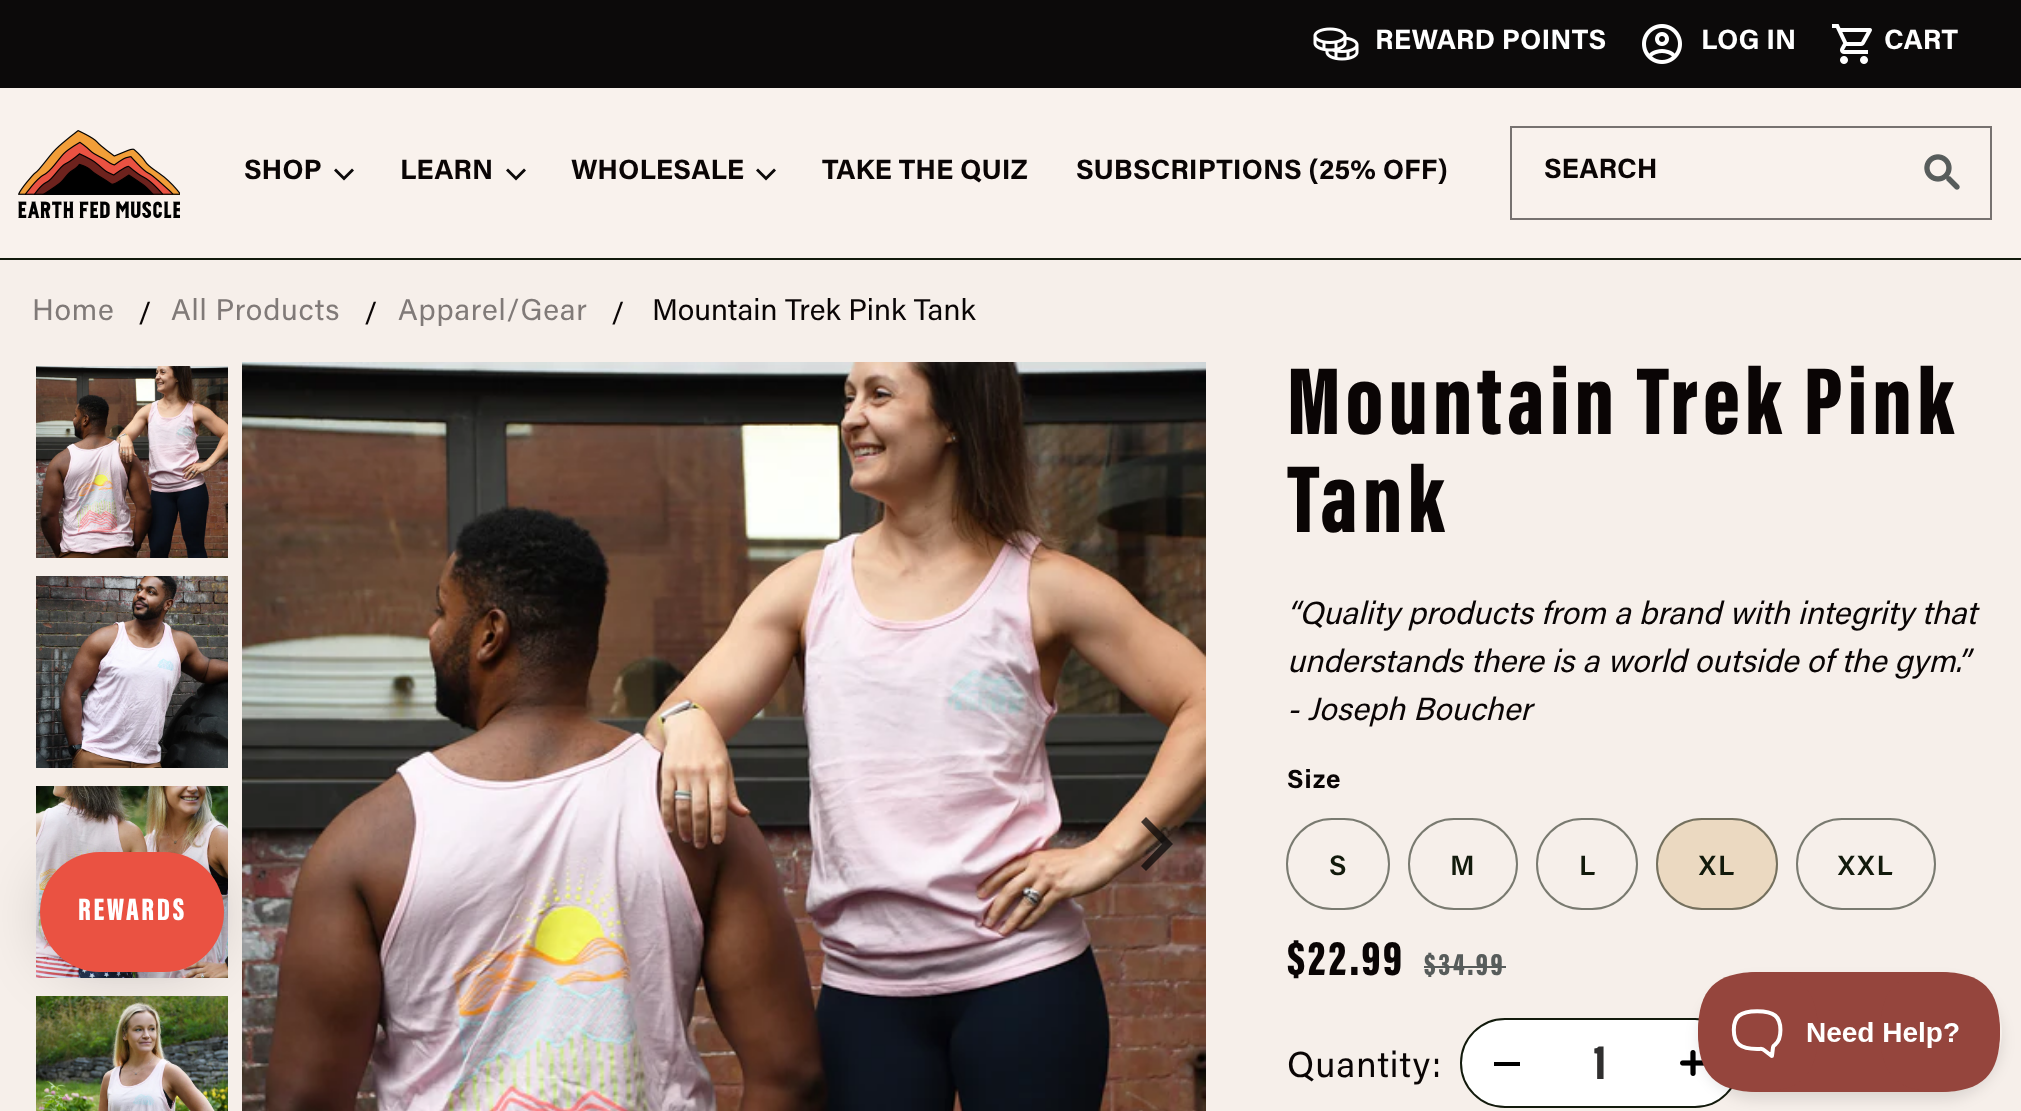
<svg xmlns="http://www.w3.org/2000/svg" width="2021" height="1111" viewBox="0 0 2021 1111">
  <style>
    .t1 { font: bold 28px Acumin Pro; fill: #fff; }
    .t2 { font: bold 28px Acumin Pro; fill: #0a0505; }
    .t3 { font: 30px Acumin Pro; letter-spacing: 0.75px; fill: #807a78; }
    .t4 { font: 30px Acumin Pro; fill: #0a0505; }
    .t5 { font: 900 98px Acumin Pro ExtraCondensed; letter-spacing: 4.9px; fill: #0a0505; }
    .t6 { font: italic 32px Acumin Pro; fill: #0a0505; }
    .t7 { font: bold 26px Acumin Pro; letter-spacing: 1px; fill: #0a0505; }
    .t8 { font: 600 28px Acumin Pro; letter-spacing: 2px; fill: #121a0c; }
    .t9 { font: 900 50px Acumin Pro ExtraCondensed; letter-spacing: 2.5px; fill: #0a0505; }
    .t10 { font: 900 32px Acumin Pro ExtraCondensed; letter-spacing: 2.5px; fill: #575c5b; }
    .t11 { font: 36px Acumin Pro; letter-spacing: 1px; fill: #0a0505; }
    .t12 { font: 900 50px Acumin Pro ExtraCondensed; letter-spacing: 2.5px; fill: #302f2f; }
    .t13 { font: 900 32px Acumin Pro ExtraCondensed; letter-spacing: 2.5px; fill: #fff; }
  </style>
  <defs>
    <clipPath id="clip1"><path d="M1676 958H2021V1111H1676ZM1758 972H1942C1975 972 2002 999 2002 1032C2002 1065 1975 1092 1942 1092H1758C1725 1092 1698 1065 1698 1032C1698 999 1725 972 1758 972Z" clip-rule="evenodd"/></clipPath>
  </defs>
  <rect width="100%" height="100%" fill="#f6efea"/>
  <rect x="0" y="0" width="2021" height="88" fill="#0c0a0a"/>
  <image x="1313" y="27" width="46" height="34" href="images/1.png"/>
  <text x="1375" y="49" class="t1">REWARD POINTS</text>
  <image x="1642" y="24" width="40" height="40" href="images/2.png"/>
  <text x="1701" y="49" class="t1">LOG IN</text>
  <image x="1832" y="24" width="40" height="40" href="images/3.png"/>
  <text x="1884" y="49" class="t1">CART</text>
  <rect x="0" y="88" width="2021" height="170" fill="#f9f2ed"/>
  <rect x="0" y="258" width="2021" height="2" fill="#121a0c"/>
  <image x="18" y="130" width="162" height="88" href="images/4.png"/>
  <text x="244" y="179" class="t2">SHOP</text>
  <path d="M336 168.5L344 176.5L352 168.5L354 170.5L344 180.5L334 170.5Z" fill="#0c0a0a"/>
  <text x="400" y="179" class="t2">LEARN</text>
  <path d="M508 168.5L516 176.5L524 168.5L526 170.5L516 180.5L506 170.5Z" fill="#0c0a0a"/>
  <text x="571" y="179" class="t2">WHOLESALE</text>
  <path d="M758 168.5L766 176.5L774 168.5L776 170.5L766 180.5L756 170.5Z" fill="#0c0a0a"/>
  <text x="822" y="179" class="t2">TAKE THE QUIZ</text>
  <text x="1076" y="179" class="t2">SUBSCRIPTIONS (25% OFF)</text>
  <rect x="1511" y="127" width="480" height="92" fill="none" stroke="#777270" stroke-width="2"/>
  <text x="1544" y="178" class="t2">SEARCH</text>
  <image x="1924" y="154" width="36" height="36" href="images/5.png"/>
  <text x="32" y="320" class="t3">Home</text>
  <text x="138" y="323" class="t4">/</text>
  <text x="171" y="320" class="t3">All Products</text>
  <text x="364" y="323" class="t4">/</text>
  <text x="398" y="320" class="t3">Apparel/Gear</text>
  <text x="611" y="323" class="t4">/</text>
  <text x="652" y="320" class="t4">Mountain Trek Pink Tank</text>
  <image x="36" y="366" width="192" height="192" href="images/6.png"/>
  <image x="36" y="576" width="192" height="192" href="images/7.png"/>
  <image x="36" y="786" width="192" height="192" href="images/8.png"/>
  <image x="36" y="996" width="192" height="115" href="images/9.png"/>
  <image x="242" y="362" width="964" height="749" href="images/10.png"/>
  <path d="M1141 866L1162 844L1141 822L1146 817L1173 844L1146 871Z" fill="#0c0a0abf"/>
  <text x="1287" y="434" class="t5">Mountain Trek Pink</text>
  <text x="1287" y="532" class="t5">Tank</text>
  <text x="1287" y="624" class="t6">“Quality products from a brand with integrity that</text>
  <text x="1287" y="672" class="t6">understands there is a world outside of the gym.”</text>
  <text x="1287" y="720" class="t6">- Joseph Boucher</text>
  <text x="1287" y="788" class="t7">Size</text>
  <rect x="1287" y="819" width="102" height="90" rx="45" fill="none" stroke="#797a70" stroke-width="2"/>
  <text x="1329" y="875" class="t8">S</text>
  <rect x="1409" y="819" width="108" height="90" rx="45" fill="none" stroke="#797a70" stroke-width="2"/>
  <text x="1450" y="875" class="t8">M</text>
  <rect x="1537" y="819" width="100" height="90" rx="45" fill="none" stroke="#797a70" stroke-width="2"/>
  <text x="1579" y="875" class="t8">L</text>
  <rect x="1656" y="818" width="122" height="92" rx="46" fill="#ebd9c1"/>
  <rect x="1657" y="819" width="120" height="90" rx="45" fill="none" stroke="#121a0c8c" stroke-width="2"/>
  <text x="1699" y="875" class="t8">XL</text>
  <rect x="1797" y="819" width="138" height="90" rx="45" fill="none" stroke="#797a70" stroke-width="2"/>
  <text x="1838" y="875" class="t8">XXL</text>
  <text x="1287" y="975" class="t9">$22.99</text>
  <text x="1424" y="975" class="t10">$34.99</text>
  <rect x="1424" y="966" width="82" height="2" fill="#575c5b"/>
  <text x="1287" y="1077" class="t11">Quantity:</text>
  <rect x="1461" y="1019" width="278" height="88" rx="44" fill="#fff" stroke="#121a0c" stroke-width="2"/>
  <rect x="1494" y="1062" width="26" height="4" fill="#000"/>
  <text x="1594" y="1079" class="t12">1</text>
  <image x="1680" y="1050" width="24" height="26" href="images/11.png"/>
  <rect x="40" y="856" width="184" height="120" rx="60" fill="#00000026" filter="blur(30px)"/>
  <rect x="40" y="854" width="184" height="120" rx="60" fill="#0000000d" filter="blur(6px)"/>
  <rect x="40" y="852" width="184" height="120" rx="60" fill="#ea5242"/>
  <text x="78" y="920" class="t13">REWARDS</text>
  <g clip-path="url(#clip1)">
    <rect x="1698" y="980" width="304" height="120" rx="60" fill="#0000001a" filter="blur(7px)"/>
  </g>
  <image x="1698" y="972" width="302" height="120" href="images/12.png"/>
</svg>
